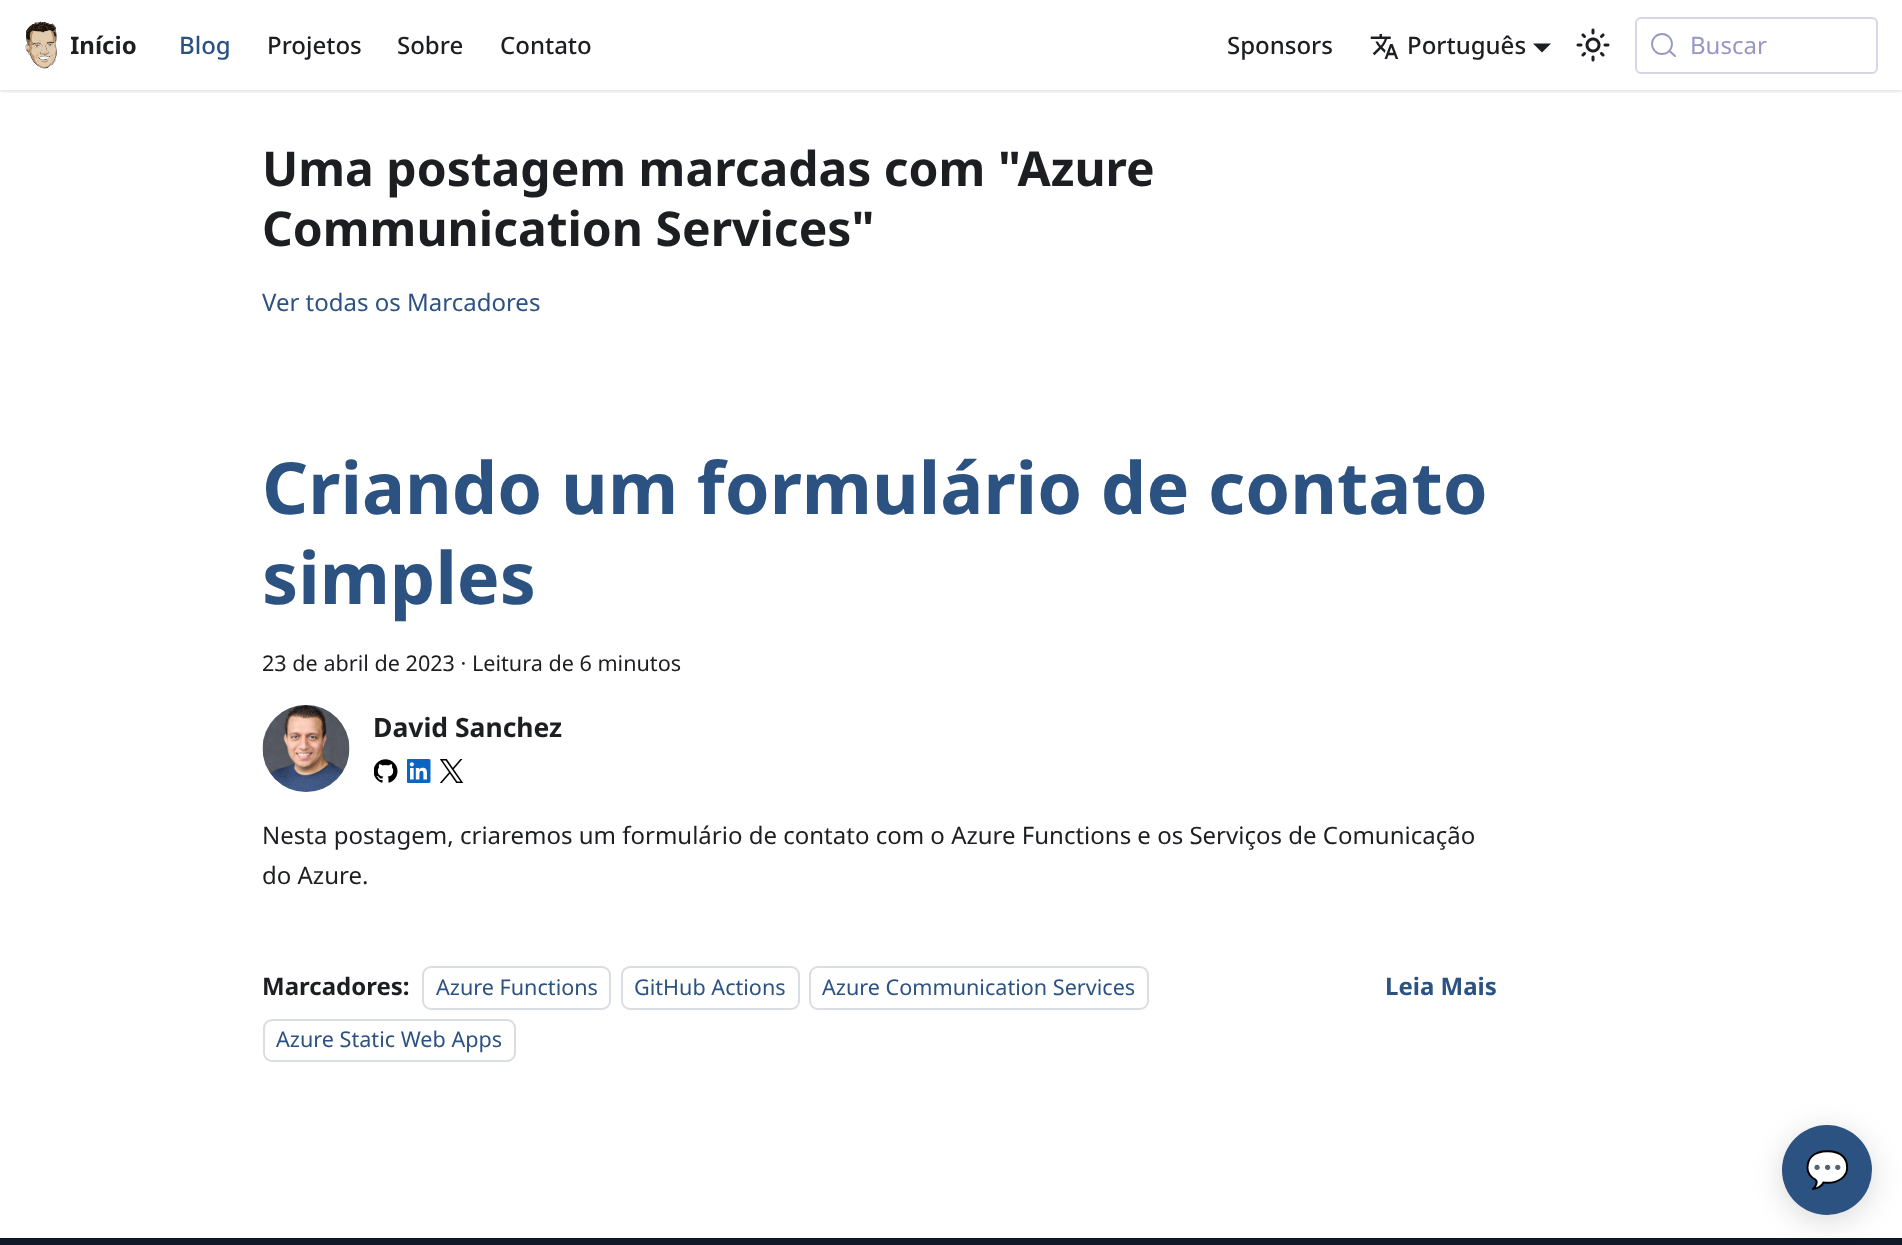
<svg xmlns="http://www.w3.org/2000/svg" width="1902" height="1245" viewBox="0 0 1902 1245">
  <style>
    .t1 { font: bold 24px Noto Sans; fill: #1c1e21; }
    .t2 { font: 500 24px Noto Sans; fill: #2c5282; }
    .t3 { font: 500 24px Noto Sans; fill: #1c1e21; }
    .t4 { font: 24px Noto Sans; fill: #9698c3; }
    .t5 { font: bold 48px Noto Sans; fill: #1c1e21; }
    .t6 { font: 24px Noto Sans; fill: #2c5282; }
    .t7 { font: bold 72px Noto Sans; fill: #2c5282; }
    .t8 { font: 21.6px Noto Sans; fill: #1c1e21; }
    .t9 { font: bold 26.5px Noto Sans; fill: #1c1e21; }
    .t10 { font: 24px Noto Sans; fill: #1c1e21; }
    .t11 { font: 21.6px Noto Sans; fill: #2c5282; }
    .t12 { font: bold 24px Noto Sans; fill: #2c5282; }
    .t13 { font: 36px Noto Color Emoji; fill: #fff; }
  </style>
  <defs>
    <clipPath id="clip1"><rect x="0" y="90" width="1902" height="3"/></clipPath>
    <clipPath id="clip2"><rect x="71" y="26" width="66" height="39"/></clipPath>
  </defs>
  <rect width="100%" height="100%" fill="#fff"/>
  <g clip-path="url(#clip1)">
    <rect x="0" y="2" width="1902" height="90" fill="#0000001a" filter="blur(1.5px)"/>
  </g>
  <image x="25" y="21" width="32" height="48" href="images/1.png"/>
  <g clip-path="url(#clip2)">
    <text x="70" y="54" class="t1">Início</text>
  </g>
  <text x="179" y="54" class="t2">Blog</text>
  <text x="267" y="54" class="t3">Projetos</text>
  <text x="397" y="54" class="t3">Sobre</text>
  <text x="500" y="54" class="t3">Contato</text>
  <text x="1227" y="54" class="t3">Sponsors</text>
  <image x="1370" y="34" width="29" height="25" href="images/2.png"/>
  <text x="1407" y="54" class="t3">Português</text>
  <path d="M1533 43.5H1551L1542 52.5Z" fill="#1c1e21"/>
  <image x="1576" y="28" width="34" height="34" href="images/3.png"/>
  <rect x="1636" y="18" width="241" height="55" rx="5" fill="none" stroke="#d6d6e7" stroke-width="2"/>
  <circle cx="1662" cy="44" r="10" fill="none" stroke="#9698c3" stroke-width="1.8"/>
  <path d="M1675 56L1669.5 51" fill="none" stroke="#9698c3" stroke-width="2" stroke-linecap="round" stroke-linejoin="round"/>
  <text x="1690" y="54" class="t4">Buscar</text>
  <text x="262" y="186" class="t5">Uma postagem marcadas com "Azure</text>
  <text x="262" y="246" class="t5">Communication Services"</text>
  <text x="262" y="311" class="t6">Ver todas os Marcadores</text>
  <text x="262" y="514" class="t7">Criando um formulário de contato</text>
  <text x="262" y="604" class="t7">simples</text>
  <text x="262" y="671" class="t8">23 de abril de 2023 · Leitura de 6 minutos</text>
  <image x="262" y="705" width="88" height="87" href="images/4.png"/>
  <text x="373" y="737" class="t9">David Sanchez</text>
  <image x="374" y="759" width="24" height="24" href="images/5.png"/>
  <image x="407" y="759" width="24" height="24" href="images/6.png"/>
  <image x="440" y="759" width="24" height="24" href="images/7.png"/>
  <text x="262" y="844" class="t10">Nesta postagem, criaremos um formulário de contato com o Azure Functions e os Serviços de Comunicação</text>
  <text x="262" y="884" class="t10">do Azure.</text>
  <text x="262" y="995" class="t1">Marcadores:</text>
  <rect x="423" y="967" width="187" height="42" rx="8" fill="none" stroke="#dadde1" stroke-width="2"/>
  <text x="436" y="995" class="t11">Azure Functions</text>
  <rect x="622" y="967" width="177" height="42" rx="8" fill="none" stroke="#dadde1" stroke-width="2"/>
  <text x="634" y="995" class="t11">GitHub Actions</text>
  <rect x="810" y="967" width="338" height="42" rx="8" fill="none" stroke="#dadde1" stroke-width="2"/>
  <text x="822" y="995" class="t11">Azure Communication Services</text>
  <rect x="264" y="1020" width="251" height="41" rx="8" fill="none" stroke="#dadde1" stroke-width="2"/>
  <text x="276" y="1047" class="t11">Azure Static Web Apps</text>
  <text x="1385" y="995" class="t12">Leia Mais</text>
  <rect x="0" y="1238" width="1902" height="7" fill="#111827"/>
  <rect x="1782" y="1131" width="90" height="90" rx="45" fill="#00000026" filter="blur(15px)"/>
  <circle cx="1827" cy="1170" r="45" fill="#2c5282"/>
  <text x="1805" y="1182" class="t13">💬</text>
</svg>
